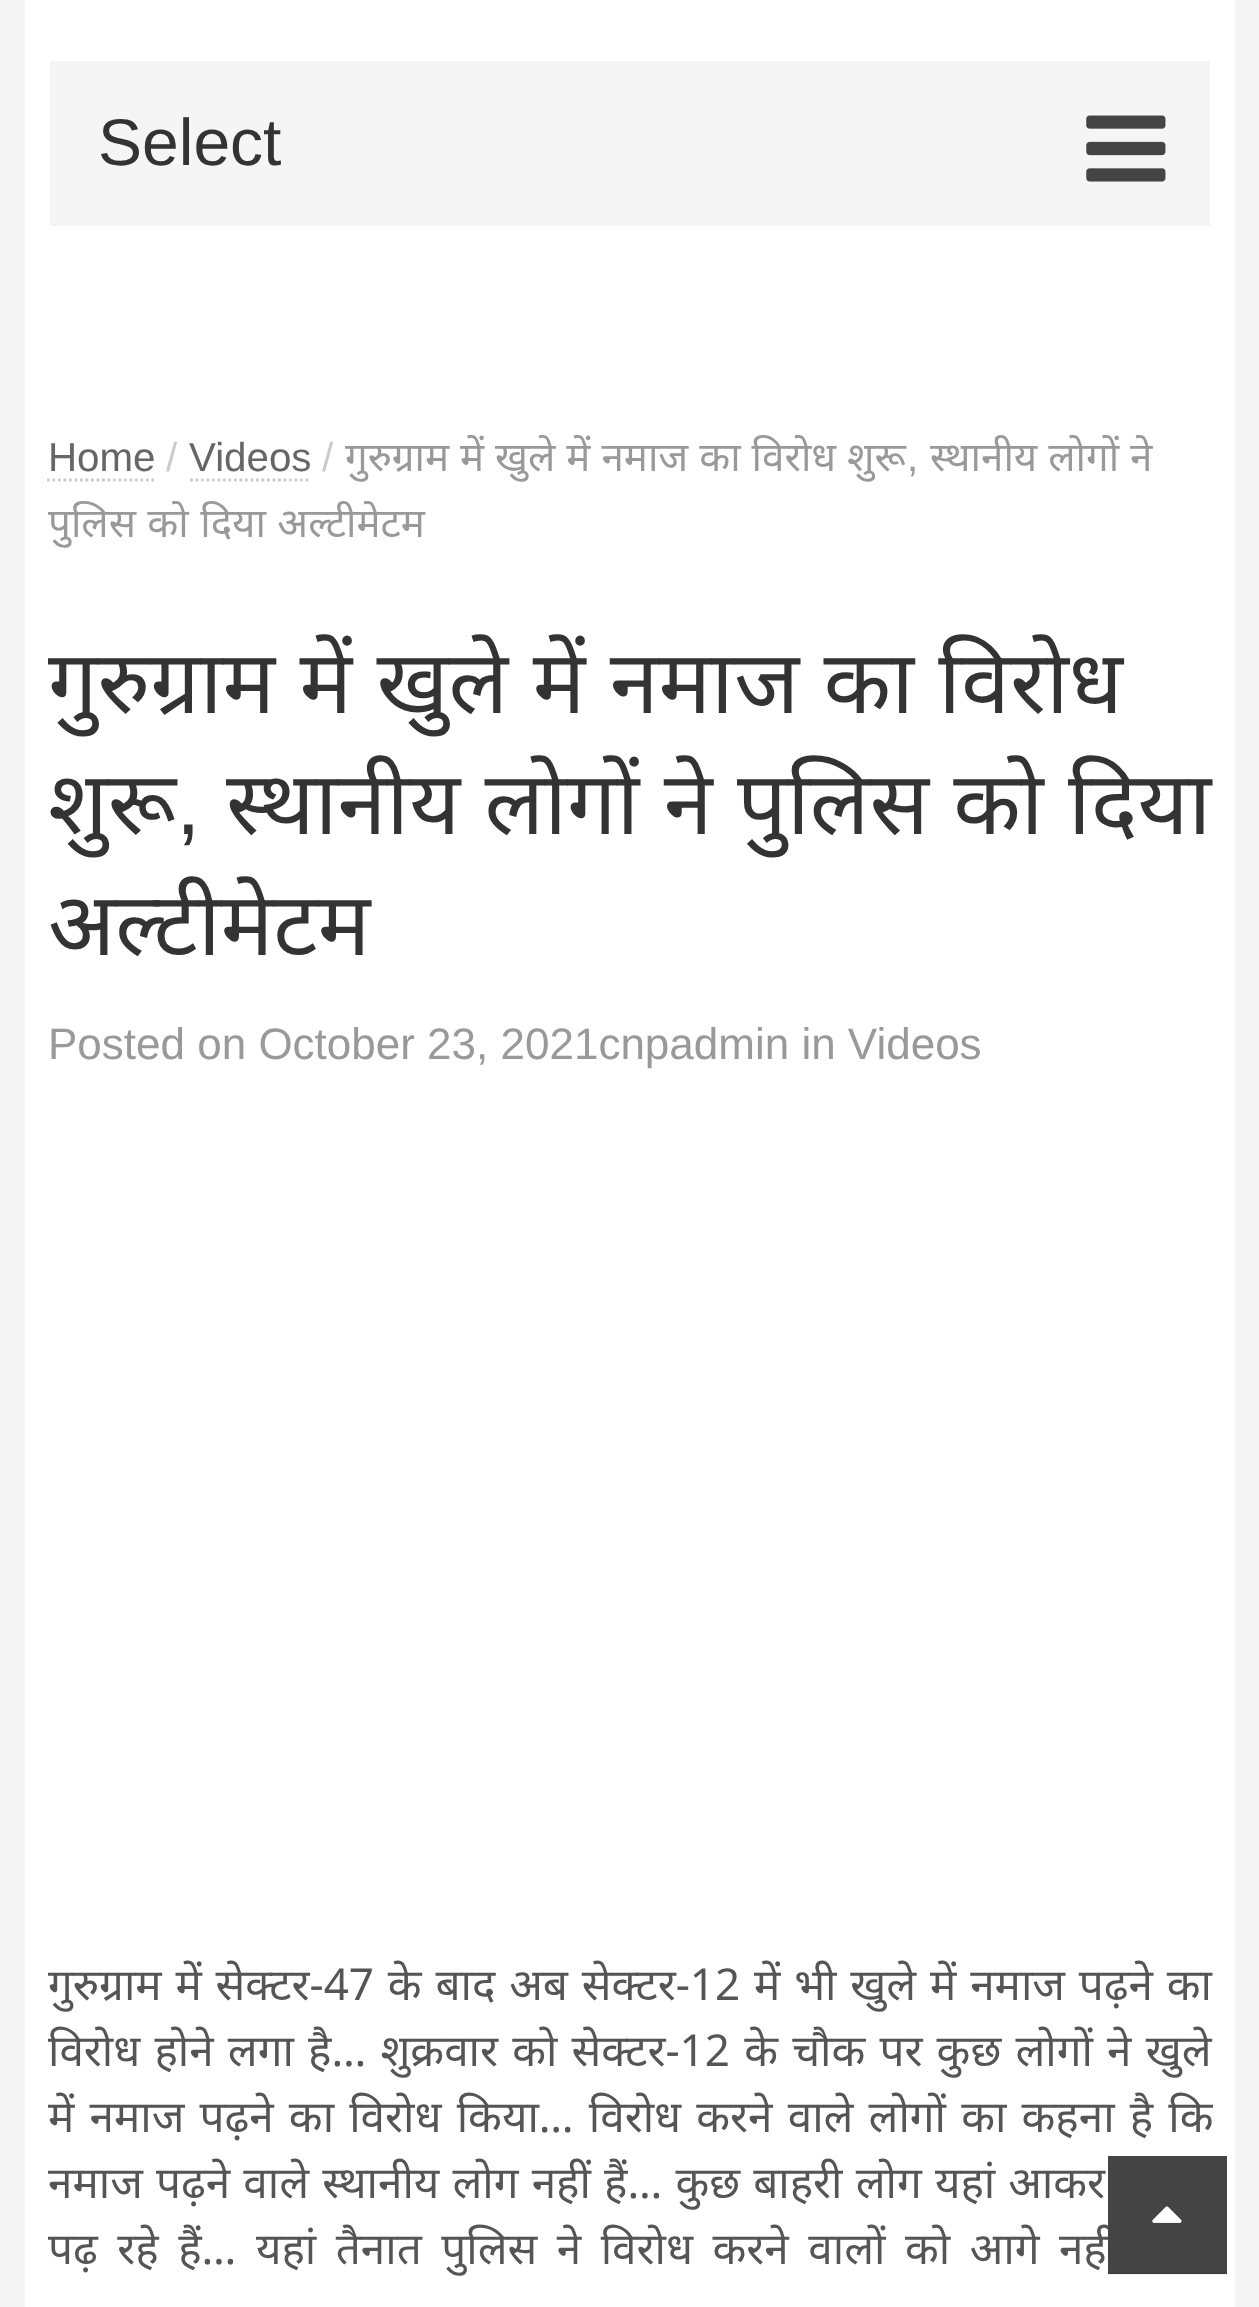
<svg xmlns="http://www.w3.org/2000/svg" width="1259" height="2307" viewBox="0 0 1259 2307">
  <style>
    .t1 { font: 66px Liberation Sans; fill: #333; }
    .t2 { font: 40.3px Liberation Sans; fill: #ccc; }
    .t3 { font: 40.3px Liberation Sans; fill: #666; }
    .t4 { font: 40.3px Noto Sans; fill: #999; }
    .t5 { font: 40.3px Liberation Sans; fill: #999; }
    .t6 { font: 88px Noto Sans; fill: #333; }
    .t7 { font: 88px Liberation Sans; fill: #333; }
    .t8 { font: 44px Liberation Sans; fill: #999; }
    .t9 { font: 44px Noto Sans; fill: #555; }
  </style>
  <defs>
    <clipPath id="clip1"><rect x="47" y="1953" width="1166" height="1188"/></clipPath>
  </defs>
  <rect width="100%" height="100%" fill="#f5f5f5"/>
  <rect x="25" y="0" width="1210" height="2307" fill="#fff"/>
  <rect x="50" y="61" width="1160" height="165" fill="#f5f5f5"/>
  <text x="98" y="165" class="t1">Select</text>
  <image x="1086" y="115" width="80" height="67" href="images/1.png"/>
  <text x="166" y="471" class="t2">/</text>
  <text x="189" y="471" class="t3">Videos</text>
  <path d="M190 480H311" fill="none" stroke="#ccc" stroke-width="2.8" stroke-dasharray="2.75 2.75"/>
  <text x="322" y="471" class="t2">/</text>
  <text x="345" y="471" word-spacing="0.5" class="t4">गुरुग्राम में खुले में नमाज का विरोध शुरू</text>
  <text x="930" y="471" word-spacing="0.5" class="t4">स्थानीय लोगों ने</text>
  <text x="48" y="471" class="t3">Home</text>
  <path d="M47 480H154" fill="none" stroke="#ccc" stroke-width="2.8" stroke-dasharray="2.75 2.75"/>
  <text x="907" y="471" class="t5">,</text>
  <text x="48" y="537" word-spacing="1" class="t4">पुलिस को दिया अल्टीमेटम</text>
  <text x="48" y="713" word-spacing="1.5" class="t6">गुरुग्राम में खुले में नमाज का विरोध</text>
  <text x="48" y="834" class="t6">शुरू</text>
  <text x="176" y="834" class="t7">,</text>
  <text x="226" y="834" word-spacing="1.5" class="t6">स्थानीय लोगों ने पुलिस को दिया</text>
  <text x="48" y="955" class="t6">अल्टीमेटम</text>
  <text x="48" y="1059" class="t8">Posted on October 23, 2021cnpadmin in Videos</text>
  <g clip-path="url(#clip1)">
    <text x="48" y="2000" word-spacing="2.4" class="t9">गुरुग्राम में सेक्टर-47 के बाद अब सेक्टर-12 में भी खुले में नमाज पढ़ने का</text>
  </g>
  <text x="48" y="2066" word-spacing="2.75" class="t9">विरोध होने लगा है… शुक्रवार को सेक्टर-12 के चौक पर कुछ लोगों ने खुले</text>
  <g clip-path="url(#clip1)">
    <text x="48" y="2132" word-spacing="3.75" class="t9">में नमाज पढ़ने का विरोध किया… विरोध करने वाले लोगों का कहना है कि</text>
  </g>
  <text x="48" y="2198" word-spacing="1.75" class="t9">नमाज पढ़ने वाले स्थानीय लोग नहीं हैं… कुछ बाहरी लोग यहां आकर</text>
  <text x="48" y="2264" word-spacing="8.1" class="t9">पढ़ रहे हैं… यहां तैनात पुलिस ने विरोध करने वालों को आगे नहीं</text>
  <rect x="1108" y="2156" width="119" height="118" fill="#444"/>
  <rect x="1108" y="2272" width="119" height="3" fill="#00000012"/>
  <image x="1152" y="2206" width="30" height="17" href="images/2.png"/>
</svg>
